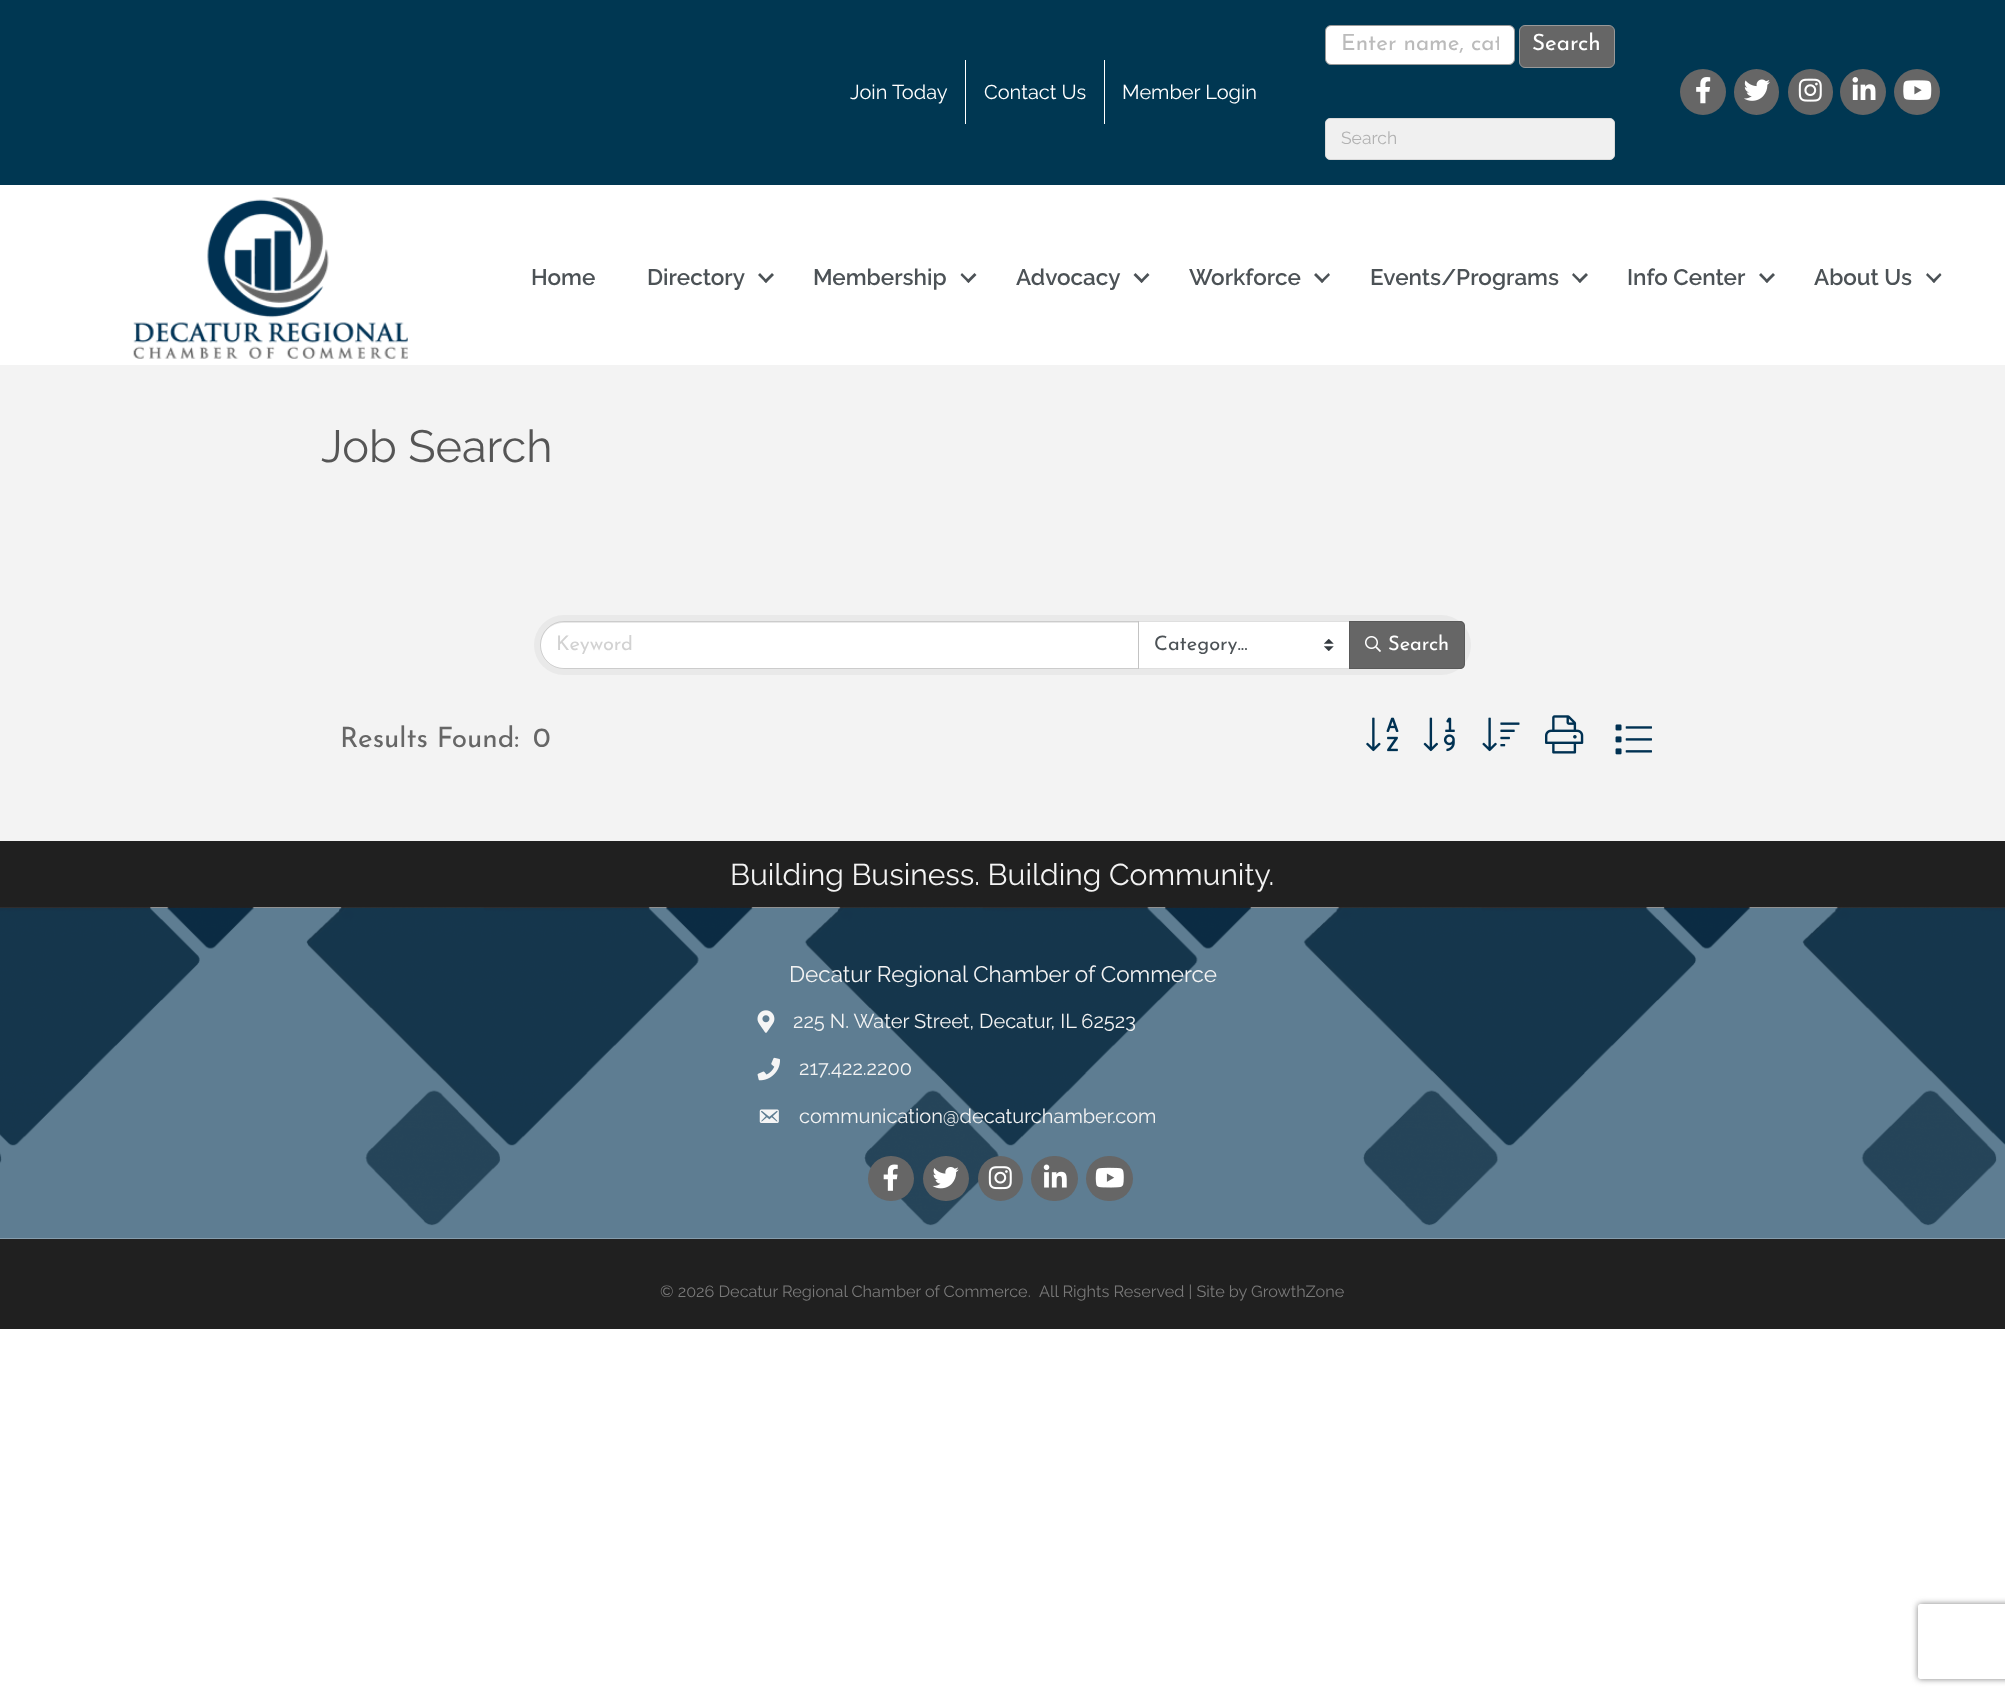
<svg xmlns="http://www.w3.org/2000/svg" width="2005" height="1696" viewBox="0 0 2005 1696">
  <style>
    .t1 { font: 20px Raleway; fill: #fff; }
    .t2 { font: 22.5px Josefin Sans; fill: #bbb; }
    .t3 { font: 22.5px Josefin Sans; fill: #fff; }
    .t4 { font: 17.5px Raleway; fill: #b2b2b2; }
    .t5 { font: 600 22.5px Raleway; fill: #4c5256; }
    .t6 { font: 45px Raleway; fill: #555; }
    .t7 { font: 20px Josefin Sans; fill: #d2d2d2; }
    .t8 { font: 20px Josefin Sans; fill: #4c5256; }
    .t9 { font: 20px Josefin Sans; fill: #fff; }
    .t10 { font: 28px Josefin Sans; fill: #666; }
    .t11 { font: 30px Raleway; fill: #f3f3f3; }
    .t12 { font: 22.5px Raleway; fill: #f3f3f3; }
    .t13 { font: 20px Raleway; fill: #f3f3f3; }
    .t14 { font: 16.25px Raleway; fill: #797979; }
  </style>
  <defs>
    <clipPath id="clip1"><rect x="1341" y="34" width="158" height="22"/></clipPath>
    <clipPath id="clip2"><rect x="556" y="635" width="567" height="20"/></clipPath>
    <clipPath id="clip3"><path d="M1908 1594H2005V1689H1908ZM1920.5 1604H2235.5C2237 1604 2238 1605 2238 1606.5V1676.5C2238 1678 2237 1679 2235.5 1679H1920.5C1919 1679 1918 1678 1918 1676.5V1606.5C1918 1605 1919 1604 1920.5 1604Z" clip-rule="evenodd"/></clipPath>
  </defs>
  <rect width="100%" height="100%" fill="#fff"/>
  <rect x="0" y="0" width="2005" height="185" fill="#003752"/>
  <text x="850" y="99" class="t1">Join Today</text>
  <rect x="965" y="60" width="1" height="64" fill="#fff"/>
  <text x="984" y="99" class="t1">Contact Us</text>
  <rect x="1104" y="60" width="1" height="64" fill="#fff"/>
  <text x="1122" y="99" class="t1">Member Login</text>
  <rect x="1325.5" y="25.5" width="189" height="39" rx="5.5" fill="#fff" stroke="#999"/>
  <g clip-path="url(#clip1)">
    <text x="1341" y="50" class="t2">Enter name, cat</text>
  </g>
  <rect x="1519.5" y="25.5" width="95" height="42" rx="5.5" fill="#666" stroke="#999"/>
  <text x="1532" y="50" class="t3">Search</text>
  <rect x="1325.5" y="118.5" width="289" height="41" rx="4.5" fill="#f0f0f0" stroke="#dadada"/>
  <text x="1341" y="144" class="t4">Search</text>
  <circle cx="1703" cy="92" r="23" fill="#666"/>
  <image x="1696" y="77" width="15" height="27" href="images/1.png"/>
  <rect x="1734" y="69" width="45" height="46" rx="22.5" fill="#666"/>
  <image x="1744" y="79" width="26" height="22" href="images/2.png"/>
  <rect x="1788" y="69" width="45" height="46" rx="22.5" fill="#666"/>
  <image x="1798" y="78" width="24" height="24" href="images/3.png"/>
  <circle cx="1863" cy="92" r="23" fill="#666"/>
  <image x="1852" y="77" width="24" height="23" href="images/4.png"/>
  <circle cx="1917" cy="92" r="23" fill="#666"/>
  <image x="1903" y="80" width="29" height="20" href="images/5.png"/>
  <image x="133" y="197" width="275" height="162" href="images/6.png"/>
  <text x="531" y="285" class="t5">Home</text>
  <text x="647" y="285" class="t5">Directory</text>
  <path d="M772 273L774 275L766 283L764 281Z" fill="#4c5256"/>
  <path d="M760 273L767.5 281L766 283L758 275Z" fill="#4c5256"/>
  <text x="813" y="285" class="t5">Membership</text>
  <path d="M974.5 273L976.5 275L968.5 283L966.5 281Z" fill="#4c5256"/>
  <path d="M962 273L970 281L968.5 283L960.5 275Z" fill="#4c5256"/>
  <text x="1016" y="285" class="t5">Advocacy</text>
  <path d="M1147.5 273L1149.5 275L1141.5 283L1140 281Z" fill="#4c5256"/>
  <path d="M1135.5 273L1143.5 281L1141.5 283L1133.5 275Z" fill="#4c5256"/>
  <text x="1189" y="285" class="t5">Workforce</text>
  <path d="M1328.5 273L1330 275L1322 283L1320.5 281Z" fill="#4c5256"/>
  <path d="M1316 273L1324 281L1322 283L1314 275Z" fill="#4c5256"/>
  <text x="1370" y="285" class="t5">Events/Programs</text>
  <path d="M1586 273L1588 275L1580 283L1578 281Z" fill="#4c5256"/>
  <path d="M1573.5 273L1581.5 281L1580 283L1572 275Z" fill="#4c5256"/>
  <text x="1627" y="285" class="t5">Info Center</text>
  <path d="M1773 273L1775 275L1767 283L1765 281Z" fill="#4c5256"/>
  <path d="M1761 273L1768.5 281L1767 283L1759 275Z" fill="#4c5256"/>
  <text x="1814" y="285" class="t5">About Us</text>
  <path d="M1940 273L1941.5 275L1934 283L1932 281Z" fill="#4c5256"/>
  <path d="M1927.5 273L1935.5 281L1934 283L1926 275Z" fill="#4c5256"/>
  <rect x="0" y="365" width="2005" height="476" fill="#f3f3f3"/>
  <text x="321" y="462" class="t6">Job Search</text>
  <rect x="534" y="615" width="937" height="60" rx="30" fill="#e9e9e9"/>
  <path d="M563.5 623H1138V668H563.5C551 668 541 658 541 645.5C541 633 551 623 563.5 623Z" fill="#fff"/>
  <rect x="1139" y="622" width="210" height="46" fill="#fff"/>
  <image x="1324" y="639" width="10" height="12" href="images/7.png"/>
  <rect x="1138.5" y="621.5" width="211" height="47" fill="none" stroke="#dfdfdf"/>
  <path d="M564 621.5H1138.5V668.5H564C551 668.5 540.5 658 540.5 645C540.5 632 551 621.5 564 621.5Z" fill="none" stroke="#0000001f"/>
  <g clip-path="url(#clip2)">
    <text x="556" y="650" class="t7">Keyword</text>
  </g>
  <text x="1154" y="650" class="t8">Category...</text>
  <path d="M1349 621H1460C1463 621 1465 623 1465 626V664C1465 667 1463 669 1460 669H1349Z" fill="#666"/>
  <path d="M1349.5 621.5H1460C1462.5 621.5 1464.5 623.5 1464.5 626V664C1464.5 666.5 1462.5 668.5 1460 668.5H1349.5Z" fill="none" stroke="#0000001f"/>
  <image x="1365" y="636" width="16" height="16" href="images/8.png"/>
  <text x="1388" y="650" class="t9">Search</text>
  <text x="340" y="747" class="t10">Results Found:</text>
  <text x="533" y="747" class="t10">0</text>
  <image x="1366" y="717" width="33" height="35" href="images/9.png"/>
  <image x="1423" y="717" width="32" height="35" href="images/10.png"/>
  <image x="1482" y="717" width="38" height="35" href="images/11.png"/>
  <image x="1545" y="715" width="39" height="39" href="images/12.png"/>
  <image x="1615" y="724" width="37" height="31" href="images/13.png"/>
  <rect x="0" y="841" width="2005" height="67" fill="#202020"/>
  <text x="730" y="885" class="t11">Building Business. Building Community.</text>
  <image x="0" y="907" width="2005" height="332" href="images/14.png"/>
  <text x="789" y="982" class="t12">Decatur Regional Chamber of Commerce</text>
  <image x="757" y="1010" width="18" height="23" href="images/15.png"/>
  <text x="793" y="1028" class="t13">225 N. Water Street, Decatur, IL 62523</text>
  <image x="757" y="1057" width="23" height="24" href="images/16.png"/>
  <text x="799" y="1075" class="t13">217.422.2200</text>
  <image x="759" y="1109" width="20" height="14" href="images/17.png"/>
  <text x="799" y="1123" class="t13">communication@decaturchamber.com</text>
  <rect x="868" y="1156" width="46" height="45" rx="22.5" fill="#666"/>
  <image x="883" y="1164" width="15" height="27" href="images/18.png"/>
  <rect x="923" y="1156" width="46" height="45" rx="22.5" fill="#666"/>
  <image x="932" y="1167" width="27" height="22" href="images/19.png"/>
  <circle cx="1000.5" cy="1178.5" r="22.5" fill="#666"/>
  <image x="988" y="1166" width="24" height="24" href="images/20.png"/>
  <rect x="1031" y="1156" width="47" height="45" rx="22.5" fill="#666"/>
  <image x="1043" y="1164" width="24" height="24" href="images/21.png"/>
  <rect x="1086" y="1156" width="47" height="45" rx="22.5" fill="#666"/>
  <image x="1095" y="1167" width="29" height="21" href="images/22.png"/>
  <rect x="0" y="1239" width="2005" height="90" fill="#202020"/>
  <text x="660" y="1297" class="t14">© 2026 Decatur Regional Chamber of Commerce.</text>
  <text x="1039" y="1297" class="t14">All Rights Reserved | Site by GrowthZone</text>
  <g clip-path="url(#clip3)">
    <rect x="1918" y="1604" width="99" height="75" rx="2.5" fill="#808080" filter="blur(3px)"/>
  </g>
</svg>
